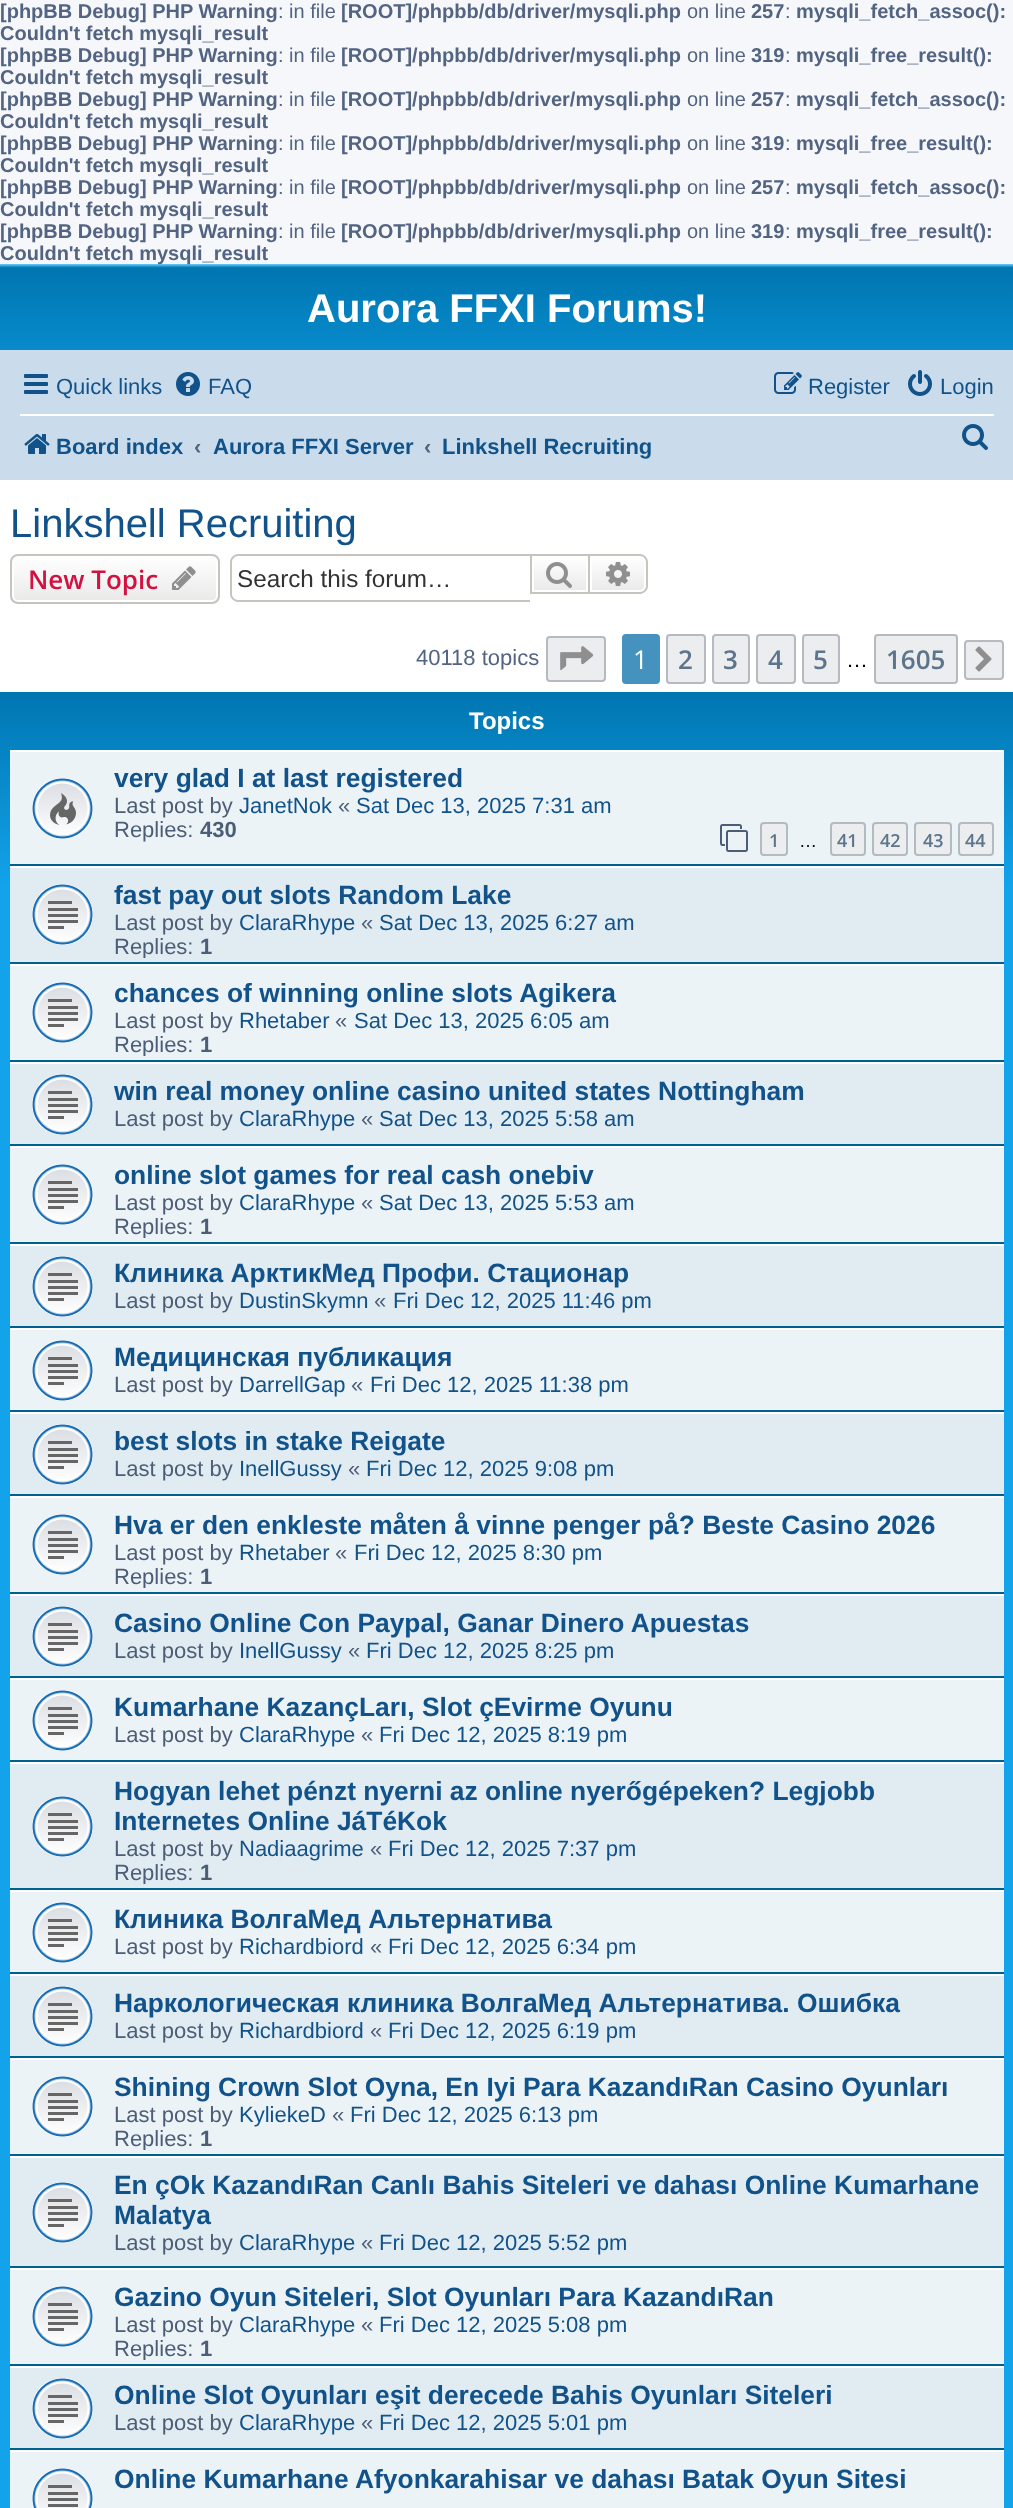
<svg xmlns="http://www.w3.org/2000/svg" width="1013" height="2508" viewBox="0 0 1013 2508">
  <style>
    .t1 { font: bold 20px Liberation Sans; fill: #536482; }
    .t2 { font: 20px Liberation Sans; fill: #536482; }
    .t3 { font: bold 40px Liberation Sans; fill: #fff; }
    .t4 { font: 22px Liberation Sans; fill: #105289; }
    .t5 { font: bold 22px Liberation Sans; fill: #105289; }
    .t6 { font: bold 22px Liberation Sans; fill: #536482; }
    .t7 { font: 40px Liberation Sans; fill: #105289; }
    .t8 { font: 600 26px Open Sans; fill: #d31141; }
    .t9 { font: 24.25px Liberation Sans; fill: #333; }
    .t10 { font: 22px Liberation Sans; fill: #536482; }
    .t11 { font: 26px Open Sans; fill: #fff; }
    .t12 { font: 600 26px Open Sans; fill: #5c758c; }
    .t13 { font: 22px Liberation Sans; fill: #000; }
    .t14 { font: bold 24px Liberation Sans; fill: #fff; }
    .t15 { font: bold 26.4px Liberation Sans; fill: #105289; }
    .t16 { font: 22px Liberation Sans; fill: #4c5d77; }
    .t17 { font: bold 22px Liberation Sans; fill: #4c5d77; }
    .t18 { font: 600 18px Open Sans; fill: #5c758c; }
    .t19 { font: 18px Liberation Sans; fill: #000; }
  </style>
  <defs>
    <linearGradient id="g1" gradientUnits="userSpaceOnUse" x1="507" y1="264" x2="507" y2="448"><stop offset="0" stop-color="#6aceff"/><stop offset="0.02" stop-color="#0076b1"/><stop offset="1" stop-color="#12a3eb"/></linearGradient>
    <clipPath id="clip1"><rect x="10" y="554" width="210" height="50" rx="8"/></clipPath>
    <linearGradient id="g2" gradientUnits="userSpaceOnUse" x1="115" y1="556" x2="115" y2="602"><stop offset="0" stop-color="#fff"/><stop offset="1" stop-color="#e9e9e9"/></linearGradient>
    <linearGradient id="g3" gradientUnits="userSpaceOnUse" x1="560" y1="556" x2="560" y2="592"><stop offset="0" stop-color="#fff"/><stop offset="1" stop-color="#e9e9e9"/></linearGradient>
    <linearGradient id="g4" gradientUnits="userSpaceOnUse" x1="618" y1="556" x2="618" y2="592"><stop offset="0" stop-color="#fff"/><stop offset="1" stop-color="#e9e9e9"/></linearGradient>
    <linearGradient id="g5" gradientUnits="userSpaceOnUse" x1="507" y1="692" x2="507" y2="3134"><stop offset="0" stop-color="#6aceff"/><stop offset="0" stop-color="#0076b1"/><stop offset="0.08" stop-color="#12a3eb"/><stop offset="1" stop-color="#12a3eb"/></linearGradient>
    <clipPath id="clip2"><rect x="10" y="872" width="994" height="86"/></clipPath>
    <clipPath id="clip3"><rect x="10" y="970" width="994" height="86"/></clipPath>
    <clipPath id="clip4"><rect x="10" y="1152" width="994" height="86"/></clipPath>
    <clipPath id="clip5"><rect x="10" y="1502" width="994" height="86"/></clipPath>
    <clipPath id="clip6"><rect x="10" y="1768" width="994" height="116"/></clipPath>
    <clipPath id="clip7"><rect x="10" y="2064" width="994" height="86"/></clipPath>
    <clipPath id="clip8"><rect x="10" y="2274" width="994" height="86"/></clipPath>
  </defs>
  <rect width="100%" height="100%" fill="#f5f7fa"/>
  <text x="0" y="18" class="t1">[phpBB Debug] PHP Warning</text>
  <text x="278" y="18" class="t2">: in file</text>
  <text x="341" y="18" class="t1">[ROOT]/phpbb/db/driver/mysqli.php</text>
  <text x="687" y="18" class="t2">on line</text>
  <text x="751" y="18" class="t1">257</text>
  <text x="785" y="18" class="t2">:</text>
  <text x="796" y="18" class="t1">mysqli_fetch_assoc():</text>
  <text x="0" y="40" class="t1">Couldn't fetch mysqli_result</text>
  <text x="0" y="62" class="t1">[phpBB Debug] PHP Warning</text>
  <text x="278" y="62" class="t2">: in file</text>
  <text x="341" y="62" class="t1">[ROOT]/phpbb/db/driver/mysqli.php</text>
  <text x="687" y="62" class="t2">on line</text>
  <text x="751" y="62" class="t1">319</text>
  <text x="785" y="62" class="t2">:</text>
  <text x="796" y="62" class="t1">mysqli_free_result():</text>
  <text x="0" y="84" class="t1">Couldn't fetch mysqli_result</text>
  <text x="0" y="106" class="t1">[phpBB Debug] PHP Warning</text>
  <text x="278" y="106" class="t2">: in file</text>
  <text x="341" y="106" class="t1">[ROOT]/phpbb/db/driver/mysqli.php</text>
  <text x="687" y="106" class="t2">on line</text>
  <text x="751" y="106" class="t1">257</text>
  <text x="785" y="106" class="t2">:</text>
  <text x="796" y="106" class="t1">mysqli_fetch_assoc():</text>
  <text x="0" y="128" class="t1">Couldn't fetch mysqli_result</text>
  <text x="0" y="150" class="t1">[phpBB Debug] PHP Warning</text>
  <text x="278" y="150" class="t2">: in file</text>
  <text x="341" y="150" class="t1">[ROOT]/phpbb/db/driver/mysqli.php</text>
  <text x="687" y="150" class="t2">on line</text>
  <text x="751" y="150" class="t1">319</text>
  <text x="785" y="150" class="t2">:</text>
  <text x="796" y="150" class="t1">mysqli_free_result():</text>
  <text x="0" y="172" class="t1">Couldn't fetch mysqli_result</text>
  <text x="0" y="194" class="t1">[phpBB Debug] PHP Warning</text>
  <text x="278" y="194" class="t2">: in file</text>
  <text x="341" y="194" class="t1">[ROOT]/phpbb/db/driver/mysqli.php</text>
  <text x="687" y="194" class="t2">on line</text>
  <text x="751" y="194" class="t1">257</text>
  <text x="785" y="194" class="t2">:</text>
  <text x="796" y="194" class="t1">mysqli_fetch_assoc():</text>
  <text x="0" y="216" class="t1">Couldn't fetch mysqli_result</text>
  <text x="0" y="238" class="t1">[phpBB Debug] PHP Warning</text>
  <text x="278" y="238" class="t2">: in file</text>
  <text x="341" y="238" class="t1">[ROOT]/phpbb/db/driver/mysqli.php</text>
  <text x="687" y="238" class="t2">on line</text>
  <text x="751" y="238" class="t1">319</text>
  <text x="785" y="238" class="t2">:</text>
  <text x="796" y="238" class="t1">mysqli_free_result():</text>
  <rect x="0" y="264" width="1013" height="86" fill="url(#g1)"/>
  <text x="0" y="260" class="t1">Couldn't fetch mysqli_result</text>
  <rect x="0" y="480" width="1013" height="212" fill="#fff"/>
  <text x="307" y="322" class="t3">Aurora FFXI Forums!</text>
  <rect x="0" y="350" width="1013" height="130" fill="#cadceb"/>
  <image x="24" y="374" width="24" height="20" href="images/1.png"/>
  <text x="56" y="394" class="t4">Quick links</text>
  <image x="176" y="372" width="24" height="24" href="images/2.png"/>
  <text x="208" y="394" class="t4">FAQ</text>
  <image x="774" y="372" width="28" height="22" href="images/3.png"/>
  <text x="808" y="394" class="t4">Register</text>
  <image x="908" y="370" width="24" height="26" href="images/4.png"/>
  <text x="940" y="394" class="t4">Login</text>
  <rect x="20" y="414" width="974" height="2" fill="#fff"/>
  <image x="24" y="434" width="26" height="20" href="images/5.png"/>
  <text x="56" y="454" class="t5">Board index</text>
  <text x="194" y="454" class="t6">‹</text>
  <text x="213" y="454" class="t5">Aurora FFXI Server</text>
  <text x="424" y="454" class="t6">‹</text>
  <text x="442" y="454" class="t5">Linkshell Recruiting</text>
  <image x="962" y="424" width="26" height="26" href="images/6.png"/>
  <text x="10" y="537" class="t7">Linkshell Recruiting</text>
  <g clip-path="url(#clip1)">
    <rect x="10" y="556" width="210" height="46" fill="url(#g2)"/>
  </g>
  <rect x="13" y="557" width="204" height="44" rx="5" fill="none" stroke="#fff" stroke-width="2"/>
  <rect x="11" y="555" width="208" height="48" rx="7" fill="none" stroke="#c7c3bf" stroke-width="2"/>
  <text x="28" y="589" class="t8">New Topic</text>
  <image x="172" y="566" width="24" height="24" href="images/7.png"/>
  <path d="M238 554H530V602H238C234 602 230 598 230 594V562C230 558 234 554 238 554ZM238 556H530V600H238C235 600 232 597 232 594V562C232 559 235 556 238 556Z" fill="#c7c3bf" fill-rule="evenodd"/>
  <text x="237" y="587" class="t9">Search this forum…</text>
  <rect x="534" y="560" width="52" height="30" fill="url(#g3)"/>
  <rect x="531" y="555" width="58" height="38" fill="none" stroke="#c7c3bf" stroke-width="2"/>
  <image x="546" y="562" width="26" height="26" href="images/8.png"/>
  <path d="M591 557H640C643 557 645 559 645 562V586C645 589 643 591 640 591H591Z" fill="url(#g4)" stroke="#fff" stroke-width="2"/>
  <path d="M590 554H640C644 554 648 558 648 562V586C648 590 644 594 640 594H590ZM590 556H640C643 556 646 559 646 562V586C646 589 643 592 640 592H590Z" fill="#c7c3bf" fill-rule="evenodd"/>
  <image x="606" y="562" width="24" height="24" href="images/9.png"/>
  <text x="416" y="665" class="t10">40118 topics</text>
  <rect x="547" y="637" width="58" height="44" rx="3" fill="#ecedee" stroke="#b4bac0" stroke-width="2"/>
  <image x="560" y="646" width="34" height="25" href="images/10.png"/>
  <rect x="623" y="635" width="36" height="48" rx="3" fill="#4692bf" stroke="#4692bf" stroke-width="2"/>
  <text x="633" y="669" class="t11">1</text>
  <rect x="667" y="635" width="38" height="48" rx="3" fill="#ecedee" stroke="#b4bac0" stroke-width="2"/>
  <text x="678" y="669" class="t12">2</text>
  <rect x="713" y="635" width="36" height="48" rx="3" fill="#ecedee" stroke="#b4bac0" stroke-width="2"/>
  <text x="723" y="669" class="t12">3</text>
  <rect x="757" y="635" width="38" height="48" rx="3" fill="#ecedee" stroke="#b4bac0" stroke-width="2"/>
  <text x="768" y="669" class="t12">4</text>
  <rect x="803" y="635" width="36" height="48" rx="3" fill="#ecedee" stroke="#b4bac0" stroke-width="2"/>
  <text x="813" y="669" class="t12">5</text>
  <text x="846" y="667" class="t13">…</text>
  <rect x="875" y="635" width="82" height="48" rx="3" fill="#ecedee" stroke="#b4bac0" stroke-width="2"/>
  <text x="886" y="669" class="t12">1605</text>
  <rect x="965" y="641" width="38" height="38" rx="3" fill="#ecedee" stroke="#b4bac0" stroke-width="2"/>
  <image x="975" y="646" width="17" height="26" href="images/11.png"/>
  <rect x="0" y="692" width="1013" height="1816" fill="url(#g5)"/>
  <text x="469" y="729" class="t14">Topics</text>
  <rect x="10" y="752" width="994" height="112" fill="#ecf3f7"/>
  <rect x="10" y="750" width="994" height="2" fill="#fff"/>
  <rect x="10" y="864" width="994" height="2" fill="#00608f"/>
  <image x="32" y="778" width="61" height="61" href="images/12.png"/>
  <text x="114" y="787" class="t15">very glad I at last registered</text>
  <text x="114" y="813" class="t16">Last post by</text>
  <text x="239" y="813" class="t4">JanetNok</text>
  <text x="338" y="813" class="t16">«</text>
  <text x="356" y="813" class="t4">Sat Dec 13, 2025 7:31 am</text>
  <text x="114" y="837" class="t16">Replies:</text>
  <text x="200" y="837" class="t17">430</text>
  <image x="720" y="824" width="28" height="28" href="images/13.png"/>
  <rect x="761" y="823" width="26" height="32" rx="3" fill="#ecedee" stroke="#b4bac0" stroke-width="2"/>
  <text x="769" y="847" class="t18">1</text>
  <text x="799" y="847" class="t19">…</text>
  <rect x="831" y="823" width="34" height="32" rx="3" fill="#ecedee" stroke="#b4bac0" stroke-width="2"/>
  <text x="837" y="847" class="t18">41</text>
  <rect x="873" y="823" width="34" height="32" rx="3" fill="#ecedee" stroke="#b4bac0" stroke-width="2"/>
  <text x="880" y="847" class="t18">42</text>
  <rect x="915" y="823" width="36" height="32" rx="3" fill="#ecedee" stroke="#b4bac0" stroke-width="2"/>
  <text x="923" y="847" class="t18">43</text>
  <rect x="959" y="823" width="34" height="32" rx="3" fill="#ecedee" stroke="#b4bac0" stroke-width="2"/>
  <text x="965" y="847" class="t18">44</text>
  <rect x="10" y="868" width="994" height="94" fill="#e1ebf2"/>
  <rect x="10" y="866" width="994" height="2" fill="#fff"/>
  <rect x="10" y="962" width="994" height="2" fill="#00608f"/>
  <image x="32" y="884" width="61" height="61" href="images/14.png"/>
  <text x="114" y="904" class="t15">fast pay out slots Random Lake</text>
  <text x="114" y="930" class="t16">Last post by</text>
  <text x="239" y="930" class="t4">ClaraRhype</text>
  <text x="361" y="930" class="t16">«</text>
  <text x="379" y="930" class="t4">Sat Dec 13, 2025 6:27 am</text>
  <g clip-path="url(#clip2)">
    <text x="114" y="954" class="t16">Replies:</text>
  </g>
  <text x="200" y="954" class="t17">1</text>
  <rect x="10" y="966" width="994" height="94" fill="#ecf3f7"/>
  <rect x="10" y="964" width="994" height="2" fill="#fff"/>
  <rect x="10" y="1060" width="994" height="2" fill="#00608f"/>
  <image x="32" y="982" width="61" height="61" href="images/15.png"/>
  <text x="114" y="1002" class="t15">chances of winning online slots Agikera</text>
  <text x="114" y="1028" class="t16">Last post by</text>
  <text x="239" y="1028" class="t4">Rhetaber</text>
  <text x="335" y="1028" class="t16">«</text>
  <text x="354" y="1028" class="t4">Sat Dec 13, 2025 6:05 am</text>
  <g clip-path="url(#clip3)">
    <text x="114" y="1052" class="t16">Replies:</text>
  </g>
  <text x="200" y="1052" class="t17">1</text>
  <rect x="10" y="1064" width="994" height="80" fill="#e1ebf2"/>
  <rect x="10" y="1062" width="994" height="2" fill="#fff"/>
  <rect x="10" y="1144" width="994" height="2" fill="#00608f"/>
  <image x="32" y="1074" width="61" height="61" href="images/14.png"/>
  <text x="114" y="1100" class="t15">win real money online casino united states Nottingham</text>
  <text x="114" y="1126" class="t16">Last post by</text>
  <text x="239" y="1126" class="t4">ClaraRhype</text>
  <text x="361" y="1126" class="t16">«</text>
  <text x="379" y="1126" class="t4">Sat Dec 13, 2025 5:58 am</text>
  <rect x="10" y="1148" width="994" height="94" fill="#ecf3f7"/>
  <rect x="10" y="1146" width="994" height="2" fill="#fff"/>
  <rect x="10" y="1242" width="994" height="2" fill="#00608f"/>
  <image x="32" y="1164" width="61" height="61" href="images/15.png"/>
  <text x="114" y="1184" class="t15">online slot games for real cash onebiv</text>
  <text x="114" y="1210" class="t16">Last post by</text>
  <text x="239" y="1210" class="t4">ClaraRhype</text>
  <text x="361" y="1210" class="t16">«</text>
  <text x="379" y="1210" class="t4">Sat Dec 13, 2025 5:53 am</text>
  <g clip-path="url(#clip4)">
    <text x="114" y="1234" class="t16">Replies:</text>
  </g>
  <text x="200" y="1234" class="t17">1</text>
  <rect x="10" y="1246" width="994" height="80" fill="#e1ebf2"/>
  <rect x="10" y="1244" width="994" height="2" fill="#fff"/>
  <rect x="10" y="1326" width="994" height="2" fill="#00608f"/>
  <image x="32" y="1256" width="61" height="61" href="images/14.png"/>
  <text x="114" y="1282" class="t15">Клиника АрктикМед Профи. Стационар</text>
  <text x="114" y="1308" class="t16">Last post by</text>
  <text x="239" y="1308" class="t4">DustinSkymn</text>
  <text x="374" y="1308" class="t16">«</text>
  <text x="393" y="1308" class="t4">Fri Dec 12, 2025 11:46 pm</text>
  <rect x="10" y="1330" width="994" height="80" fill="#ecf3f7"/>
  <rect x="10" y="1328" width="994" height="2" fill="#fff"/>
  <rect x="10" y="1410" width="994" height="2" fill="#00608f"/>
  <image x="32" y="1340" width="61" height="61" href="images/15.png"/>
  <text x="114" y="1366" class="t15">Медицинская публикация</text>
  <text x="114" y="1392" class="t16">Last post by</text>
  <text x="239" y="1392" class="t4">DarrellGap</text>
  <text x="351" y="1392" class="t16">«</text>
  <text x="370" y="1392" class="t4">Fri Dec 12, 2025 11:38 pm</text>
  <rect x="10" y="1414" width="994" height="80" fill="#e1ebf2"/>
  <rect x="10" y="1412" width="994" height="2" fill="#fff"/>
  <rect x="10" y="1494" width="994" height="2" fill="#00608f"/>
  <image x="32" y="1424" width="61" height="61" href="images/14.png"/>
  <text x="114" y="1450" class="t15">best slots in stake Reigate</text>
  <text x="114" y="1476" class="t16">Last post by</text>
  <text x="239" y="1476" class="t4">InellGussy</text>
  <text x="348" y="1476" class="t16">«</text>
  <text x="366" y="1476" class="t4">Fri Dec 12, 2025 9:08 pm</text>
  <rect x="10" y="1498" width="994" height="94" fill="#ecf3f7"/>
  <rect x="10" y="1496" width="994" height="2" fill="#fff"/>
  <rect x="10" y="1592" width="994" height="2" fill="#00608f"/>
  <image x="32" y="1514" width="61" height="61" href="images/15.png"/>
  <text x="114" y="1534" class="t15">Hva er den enkleste måten å vinne penger på? Beste Casino 2026</text>
  <text x="114" y="1560" class="t16">Last post by</text>
  <text x="239" y="1560" class="t4">Rhetaber</text>
  <text x="335" y="1560" class="t16">«</text>
  <text x="354" y="1560" class="t4">Fri Dec 12, 2025 8:30 pm</text>
  <g clip-path="url(#clip5)">
    <text x="114" y="1584" class="t16">Replies:</text>
  </g>
  <text x="200" y="1584" class="t17">1</text>
  <rect x="10" y="1596" width="994" height="80" fill="#e1ebf2"/>
  <rect x="10" y="1594" width="994" height="2" fill="#fff"/>
  <rect x="10" y="1676" width="994" height="2" fill="#00608f"/>
  <image x="32" y="1606" width="61" height="61" href="images/14.png"/>
  <text x="114" y="1632" class="t15">Casino Online Con Paypal, Ganar Dinero Apuestas</text>
  <text x="114" y="1658" class="t16">Last post by</text>
  <text x="239" y="1658" class="t4">InellGussy</text>
  <text x="348" y="1658" class="t16">«</text>
  <text x="366" y="1658" class="t4">Fri Dec 12, 2025 8:25 pm</text>
  <rect x="10" y="1680" width="994" height="80" fill="#ecf3f7"/>
  <rect x="10" y="1678" width="994" height="2" fill="#fff"/>
  <rect x="10" y="1760" width="994" height="2" fill="#00608f"/>
  <image x="32" y="1690" width="61" height="61" href="images/15.png"/>
  <text x="114" y="1716" class="t15">Kumarhane KazançLarı, Slot çEvirme Oyunu</text>
  <text x="114" y="1742" class="t16">Last post by</text>
  <text x="239" y="1742" class="t4">ClaraRhype</text>
  <text x="361" y="1742" class="t16">«</text>
  <text x="379" y="1742" class="t4">Fri Dec 12, 2025 8:19 pm</text>
  <rect x="10" y="1764" width="994" height="124" fill="#e1ebf2"/>
  <rect x="10" y="1762" width="994" height="2" fill="#fff"/>
  <rect x="10" y="1888" width="994" height="2" fill="#00608f"/>
  <image x="32" y="1796" width="61" height="61" href="images/14.png"/>
  <text x="114" y="1800" class="t15">Hogyan lehet pénzt nyerni az online nyerőgépeken? Legjobb</text>
  <text x="114" y="1830" class="t15">Internetes Online JáTéKok</text>
  <text x="114" y="1856" class="t16">Last post by</text>
  <text x="239" y="1856" class="t4">Nadiaagrime</text>
  <text x="370" y="1856" class="t16">«</text>
  <text x="388" y="1856" class="t4">Fri Dec 12, 2025 7:37 pm</text>
  <g clip-path="url(#clip6)">
    <text x="114" y="1880" class="t16">Replies:</text>
  </g>
  <text x="200" y="1880" class="t17">1</text>
  <rect x="10" y="1892" width="994" height="80" fill="#ecf3f7"/>
  <rect x="10" y="1890" width="994" height="2" fill="#fff"/>
  <rect x="10" y="1972" width="994" height="2" fill="#00608f"/>
  <image x="32" y="1902" width="61" height="61" href="images/15.png"/>
  <text x="114" y="1928" class="t15">Клиника ВолгаМед Альтернатива</text>
  <text x="114" y="1954" class="t16">Last post by</text>
  <text x="239" y="1954" class="t4">Richardbiord</text>
  <text x="370" y="1954" class="t16">«</text>
  <text x="388" y="1954" class="t4">Fri Dec 12, 2025 6:34 pm</text>
  <rect x="10" y="1976" width="994" height="80" fill="#e1ebf2"/>
  <rect x="10" y="1974" width="994" height="2" fill="#fff"/>
  <rect x="10" y="2056" width="994" height="2" fill="#00608f"/>
  <image x="32" y="1986" width="61" height="61" href="images/14.png"/>
  <text x="114" y="2012" class="t15">Наркологическая клиника ВолгаМед Альтернатива. Ошибка</text>
  <text x="114" y="2038" class="t16">Last post by</text>
  <text x="239" y="2038" class="t4">Richardbiord</text>
  <text x="370" y="2038" class="t16">«</text>
  <text x="388" y="2038" class="t4">Fri Dec 12, 2025 6:19 pm</text>
  <rect x="10" y="2060" width="994" height="94" fill="#ecf3f7"/>
  <rect x="10" y="2058" width="994" height="2" fill="#fff"/>
  <rect x="10" y="2154" width="994" height="2" fill="#00608f"/>
  <image x="32" y="2076" width="61" height="61" href="images/15.png"/>
  <text x="114" y="2096" class="t15">Shining Crown Slot Oyna, En Iyi Para KazandıRan Casino Oyunları</text>
  <text x="114" y="2122" class="t16">Last post by</text>
  <text x="239" y="2122" class="t4">KyliekeD</text>
  <text x="332" y="2122" class="t16">«</text>
  <text x="350" y="2122" class="t4">Fri Dec 12, 2025 6:13 pm</text>
  <g clip-path="url(#clip7)">
    <text x="114" y="2146" class="t16">Replies:</text>
  </g>
  <text x="200" y="2146" class="t17">1</text>
  <rect x="10" y="2158" width="994" height="108" fill="#e1ebf2"/>
  <rect x="10" y="2156" width="994" height="2" fill="#fff"/>
  <rect x="10" y="2266" width="994" height="2" fill="#00608f"/>
  <image x="32" y="2182" width="61" height="61" href="images/14.png"/>
  <text x="114" y="2194" class="t15">En çOk KazandıRan Canlı Bahis Siteleri ve dahası Online Kumarhane</text>
  <text x="114" y="2224" class="t15">Malatya</text>
  <text x="114" y="2250" class="t16">Last post by</text>
  <text x="239" y="2250" class="t4">ClaraRhype</text>
  <text x="361" y="2250" class="t16">«</text>
  <text x="379" y="2250" class="t4">Fri Dec 12, 2025 5:52 pm</text>
  <rect x="10" y="2270" width="994" height="94" fill="#ecf3f7"/>
  <rect x="10" y="2268" width="994" height="2" fill="#fff"/>
  <rect x="10" y="2364" width="994" height="2" fill="#00608f"/>
  <image x="32" y="2286" width="61" height="61" href="images/15.png"/>
  <text x="114" y="2306" class="t15">Gazino Oyun Siteleri, Slot Oyunları Para KazandıRan</text>
  <text x="114" y="2332" class="t16">Last post by</text>
  <text x="239" y="2332" class="t4">ClaraRhype</text>
  <text x="361" y="2332" class="t16">«</text>
  <text x="379" y="2332" class="t4">Fri Dec 12, 2025 5:08 pm</text>
  <g clip-path="url(#clip8)">
    <text x="114" y="2356" class="t16">Replies:</text>
  </g>
  <text x="200" y="2356" class="t17">1</text>
  <rect x="10" y="2368" width="994" height="80" fill="#e1ebf2"/>
  <rect x="10" y="2366" width="994" height="2" fill="#fff"/>
  <rect x="10" y="2448" width="994" height="2" fill="#00608f"/>
  <image x="32" y="2378" width="61" height="61" href="images/14.png"/>
  <text x="114" y="2404" class="t15">Online Slot Oyunları eşit derecede Bahis Oyunları Siteleri</text>
  <text x="114" y="2430" class="t16">Last post by</text>
  <text x="239" y="2430" class="t4">ClaraRhype</text>
  <text x="361" y="2430" class="t16">«</text>
  <text x="379" y="2430" class="t4">Fri Dec 12, 2025 5:01 pm</text>
  <rect x="10" y="2452" width="994" height="56" fill="#ecf3f7"/>
  <rect x="10" y="2450" width="994" height="2" fill="#fff"/>
  <image x="32" y="2468" width="61" height="40" href="images/16.png"/>
  <text x="114" y="2488" class="t15">Online Kumarhane Afyonkarahisar ve dahası Batak Oyun Sitesi</text>
</svg>
